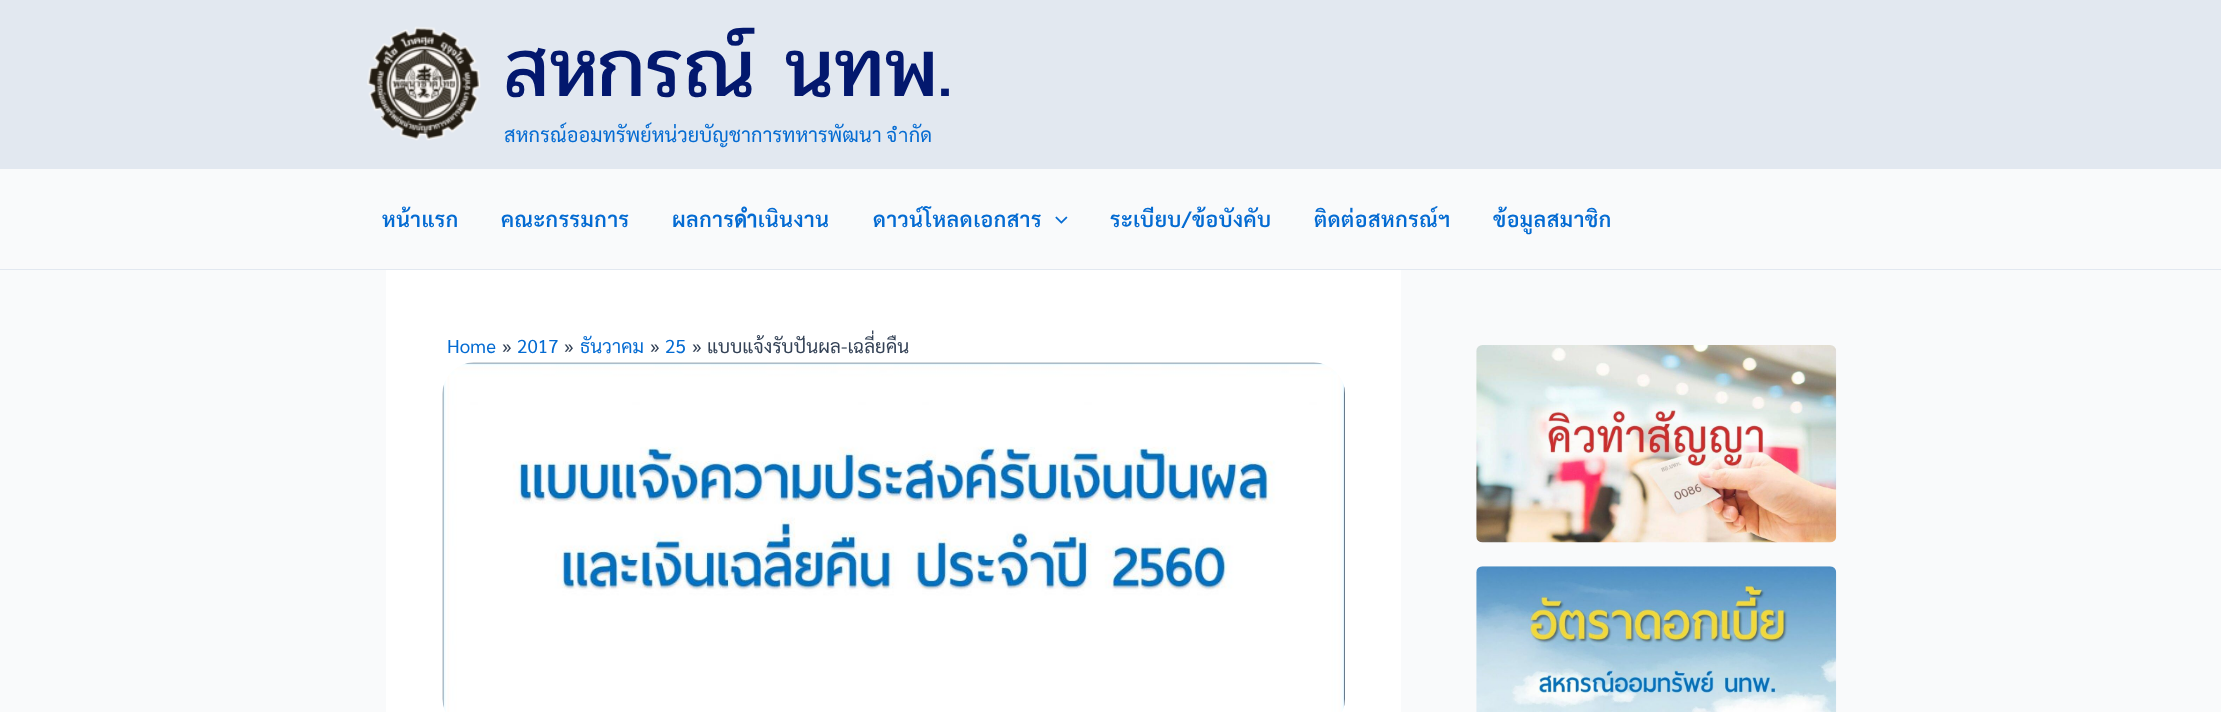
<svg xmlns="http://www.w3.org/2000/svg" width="2221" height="712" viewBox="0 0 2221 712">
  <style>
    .t1 { font: 83.75px Pridi; letter-spacing: 0.1px; fill: #03186e; }
    .t2 { font: 20px Sarabun; letter-spacing: 0.1px; fill: #046bd2; }
    .t3 { font: 600 21.25px Sarabun; letter-spacing: 0.5px; fill: #046bd2; }
    .t4 { font: 18.75px Sarabun; letter-spacing: 0.1px; fill: #046bd2; }
    .t5 { font: 18.75px Sarabun; letter-spacing: 0.1px; fill: #334155; }
  </style>
  <rect width="100%" height="100%" fill="#f9fafb"/>
  <rect x="0" y="0" width="2221" height="169" fill="#e2e8f0"/>
  <image x="367" y="26" width="114" height="115" href="images/1.png"/>
  <text x="504" y="96" class="t1">สหกรณ์ นทพ.</text>
  <text x="504" y="142" word-spacing="-1" class="t2">สหกรณ์ออมทรัพย์หน่วยบัญชาการทหารพัฒนา จำกัด</text>
  <rect x="0" y="269" width="2221" height="1" fill="#e2e8f0"/>
  <text x="382" y="227" class="t3">หน้าแรก</text>
  <text x="501" y="227" class="t3">คณะกรรมการ</text>
  <text x="672" y="227" class="t3">ผลการดำเนินงาน</text>
  <text x="873" y="227" class="t3">ดาวน์โหลดเอกสาร</text>
  <image x="1055" y="216" width="13" height="8" href="images/2.png"/>
  <text x="1110" y="227" class="t3">ระเบียบ/ข้อบังคับ</text>
  <text x="1314" y="227" class="t3">ติดต่อสหกรณ์ฯ</text>
  <text x="1493" y="227" class="t3">ข้อมูลสมาชิก</text>
  <rect x="386" y="270" width="1015" height="442" fill="#fff"/>
  <text x="447" y="353" class="t4">Home</text>
  <text x="502" y="353" class="t5">»</text>
  <text x="517" y="353" class="t4">2017</text>
  <text x="564" y="353" class="t5">»</text>
  <text x="580" y="353" class="t4">ธันวาคม</text>
  <text x="650" y="353" class="t5">»</text>
  <text x="665" y="353" class="t4">25</text>
  <text x="692" y="353" class="t5">»</text>
  <text x="707" y="353" class="t5">แบบแจ้งรับปันผล-เฉลี่ยคืน</text>
  <image x="442" y="362" width="903" height="350" href="images/3.png"/>
  <image x="1476" y="345" width="361" height="198" href="images/4.png"/>
  <image x="1476" y="566" width="361" height="146" href="images/5.png"/>
</svg>
